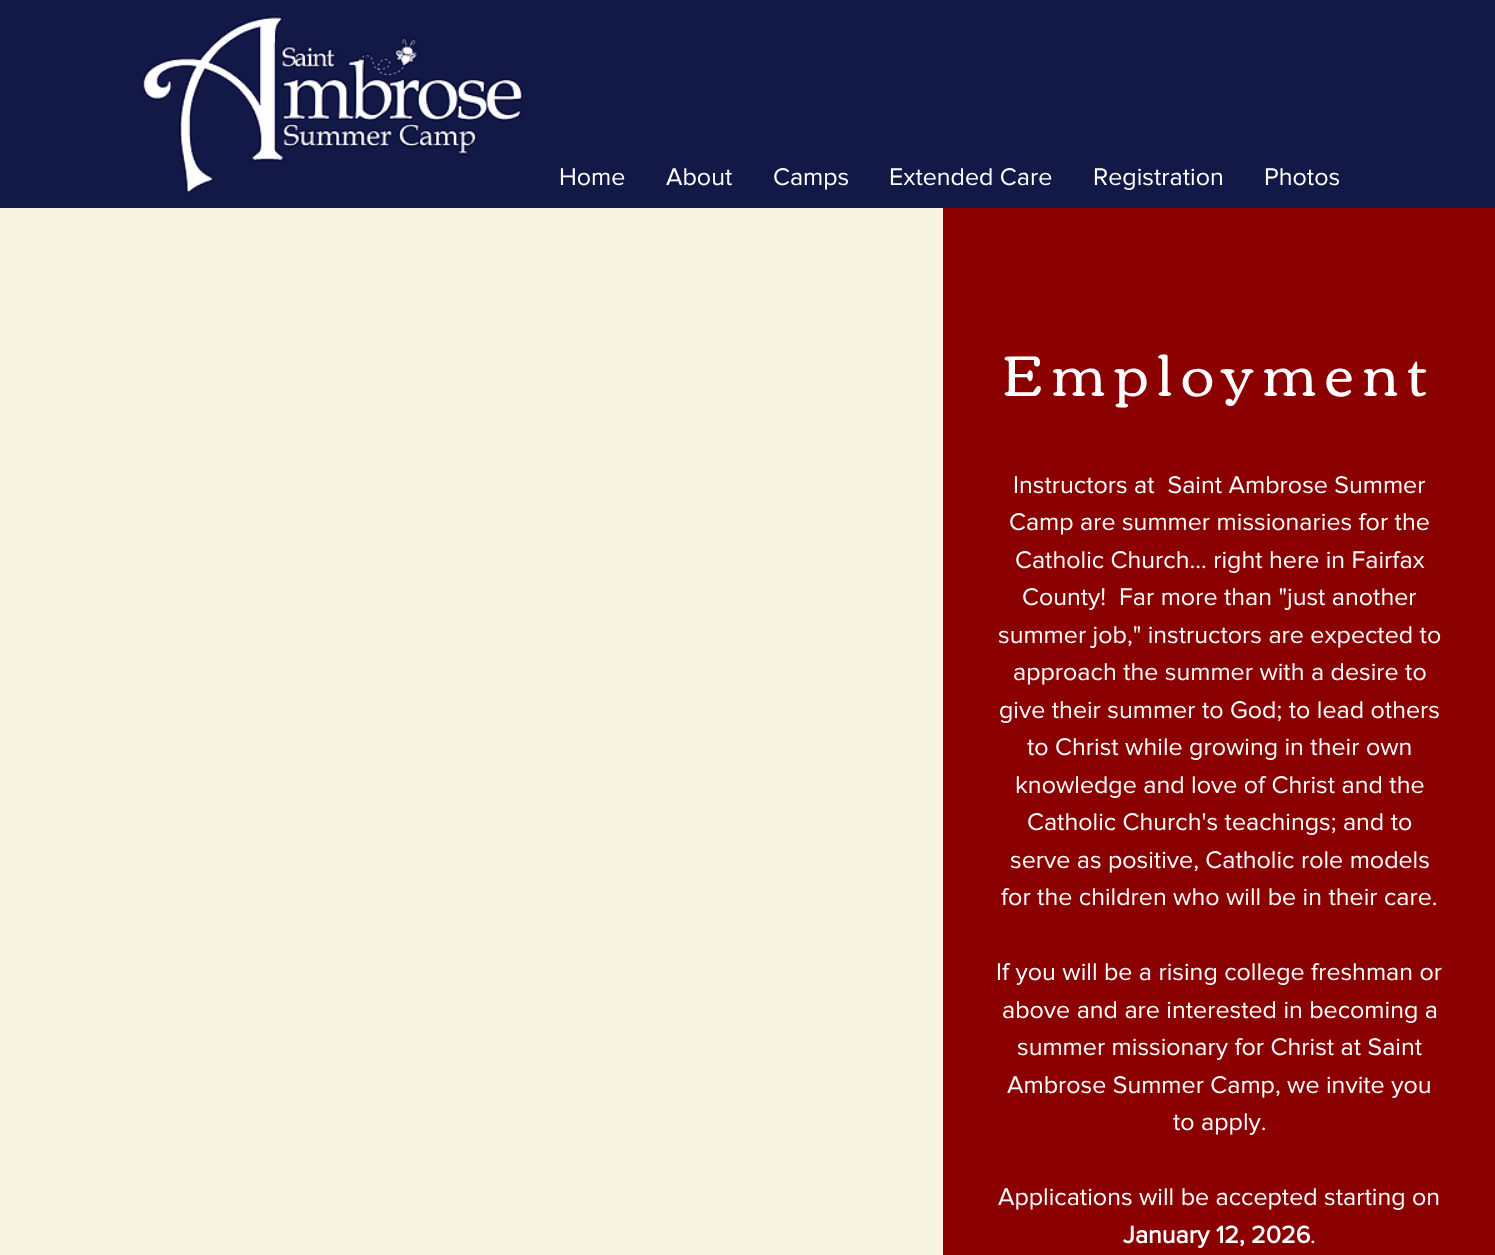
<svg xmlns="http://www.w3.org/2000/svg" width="1495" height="1255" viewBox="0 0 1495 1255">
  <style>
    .t1 { font: 25px 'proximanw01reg'; fill: #fff; }
    .t2 { font: 57.5px Corben; letter-spacing: 8.6px; fill: #fff; }
    .t3 { font: bold 25px 'proximanw01reg'; fill: #fff; }
  </style>
  <rect width="100%" height="100%" fill="#131946"/>
  <image x="142" y="15" width="381" height="178" href="images/1.png"/>
  <text x="559" y="185" class="t1">Home</text>
  <text x="666" y="185" class="t1">About</text>
  <text x="773" y="185" class="t1">Camps</text>
  <text x="889" y="185" class="t1">Extended Care</text>
  <text x="1093" y="185" class="t1">Registration</text>
  <text x="1264" y="185" class="t1">Photos</text>
  <rect x="0" y="208" width="943" height="1047" fill="#f7f5e1"/>
  <rect x="943" y="208" width="552" height="1047" fill="#8b0000"/>
  <text x="1002" y="396" class="t2">Employment</text>
  <text x="1013" y="493" class="t1" xml:space="preserve">Instructors at  Saint Ambrose Summer</text>
  <text x="1009" y="530" class="t1">Camp are summer missionaries for the</text>
  <text x="1015" y="568" class="t1">Catholic Church... right here in Fairfax</text>
  <text x="1022" y="605" class="t1" xml:space="preserve">County!  Far more than "just another</text>
  <text x="998" y="643" class="t1">summer job," instructors are expected to</text>
  <text x="1013" y="680" class="t1">approach the summer with a desire to</text>
  <text x="999" y="718" class="t1">give their summer to God; to lead others</text>
  <text x="1027" y="755" class="t1">to Christ while growing in their own</text>
  <text x="1015" y="793" class="t1">knowledge and love of Christ and the</text>
  <text x="1027" y="830" class="t1">Catholic Church's teachings; and to</text>
  <text x="1010" y="868" class="t1">serve as positive, Catholic role models</text>
  <text x="1001" y="905" class="t1">for the children who will be in their care.</text>
  <text x="996" y="980" class="t1">If you will be a rising college freshman or</text>
  <text x="1002" y="1018" class="t1">above and are interested in becoming a</text>
  <text x="1017" y="1055" class="t1">summer missionary for Christ at Saint</text>
  <text x="1007" y="1093" class="t1">Ambrose Summer Camp, we invite you</text>
  <text x="1173" y="1130" class="t1">to apply.</text>
  <text x="998" y="1205" class="t1">Applications will be accepted starting on</text>
  <text x="1123" y="1243" class="t3">January 12, 2026</text>
  <text x="1310" y="1243" class="t1">.</text>
</svg>
